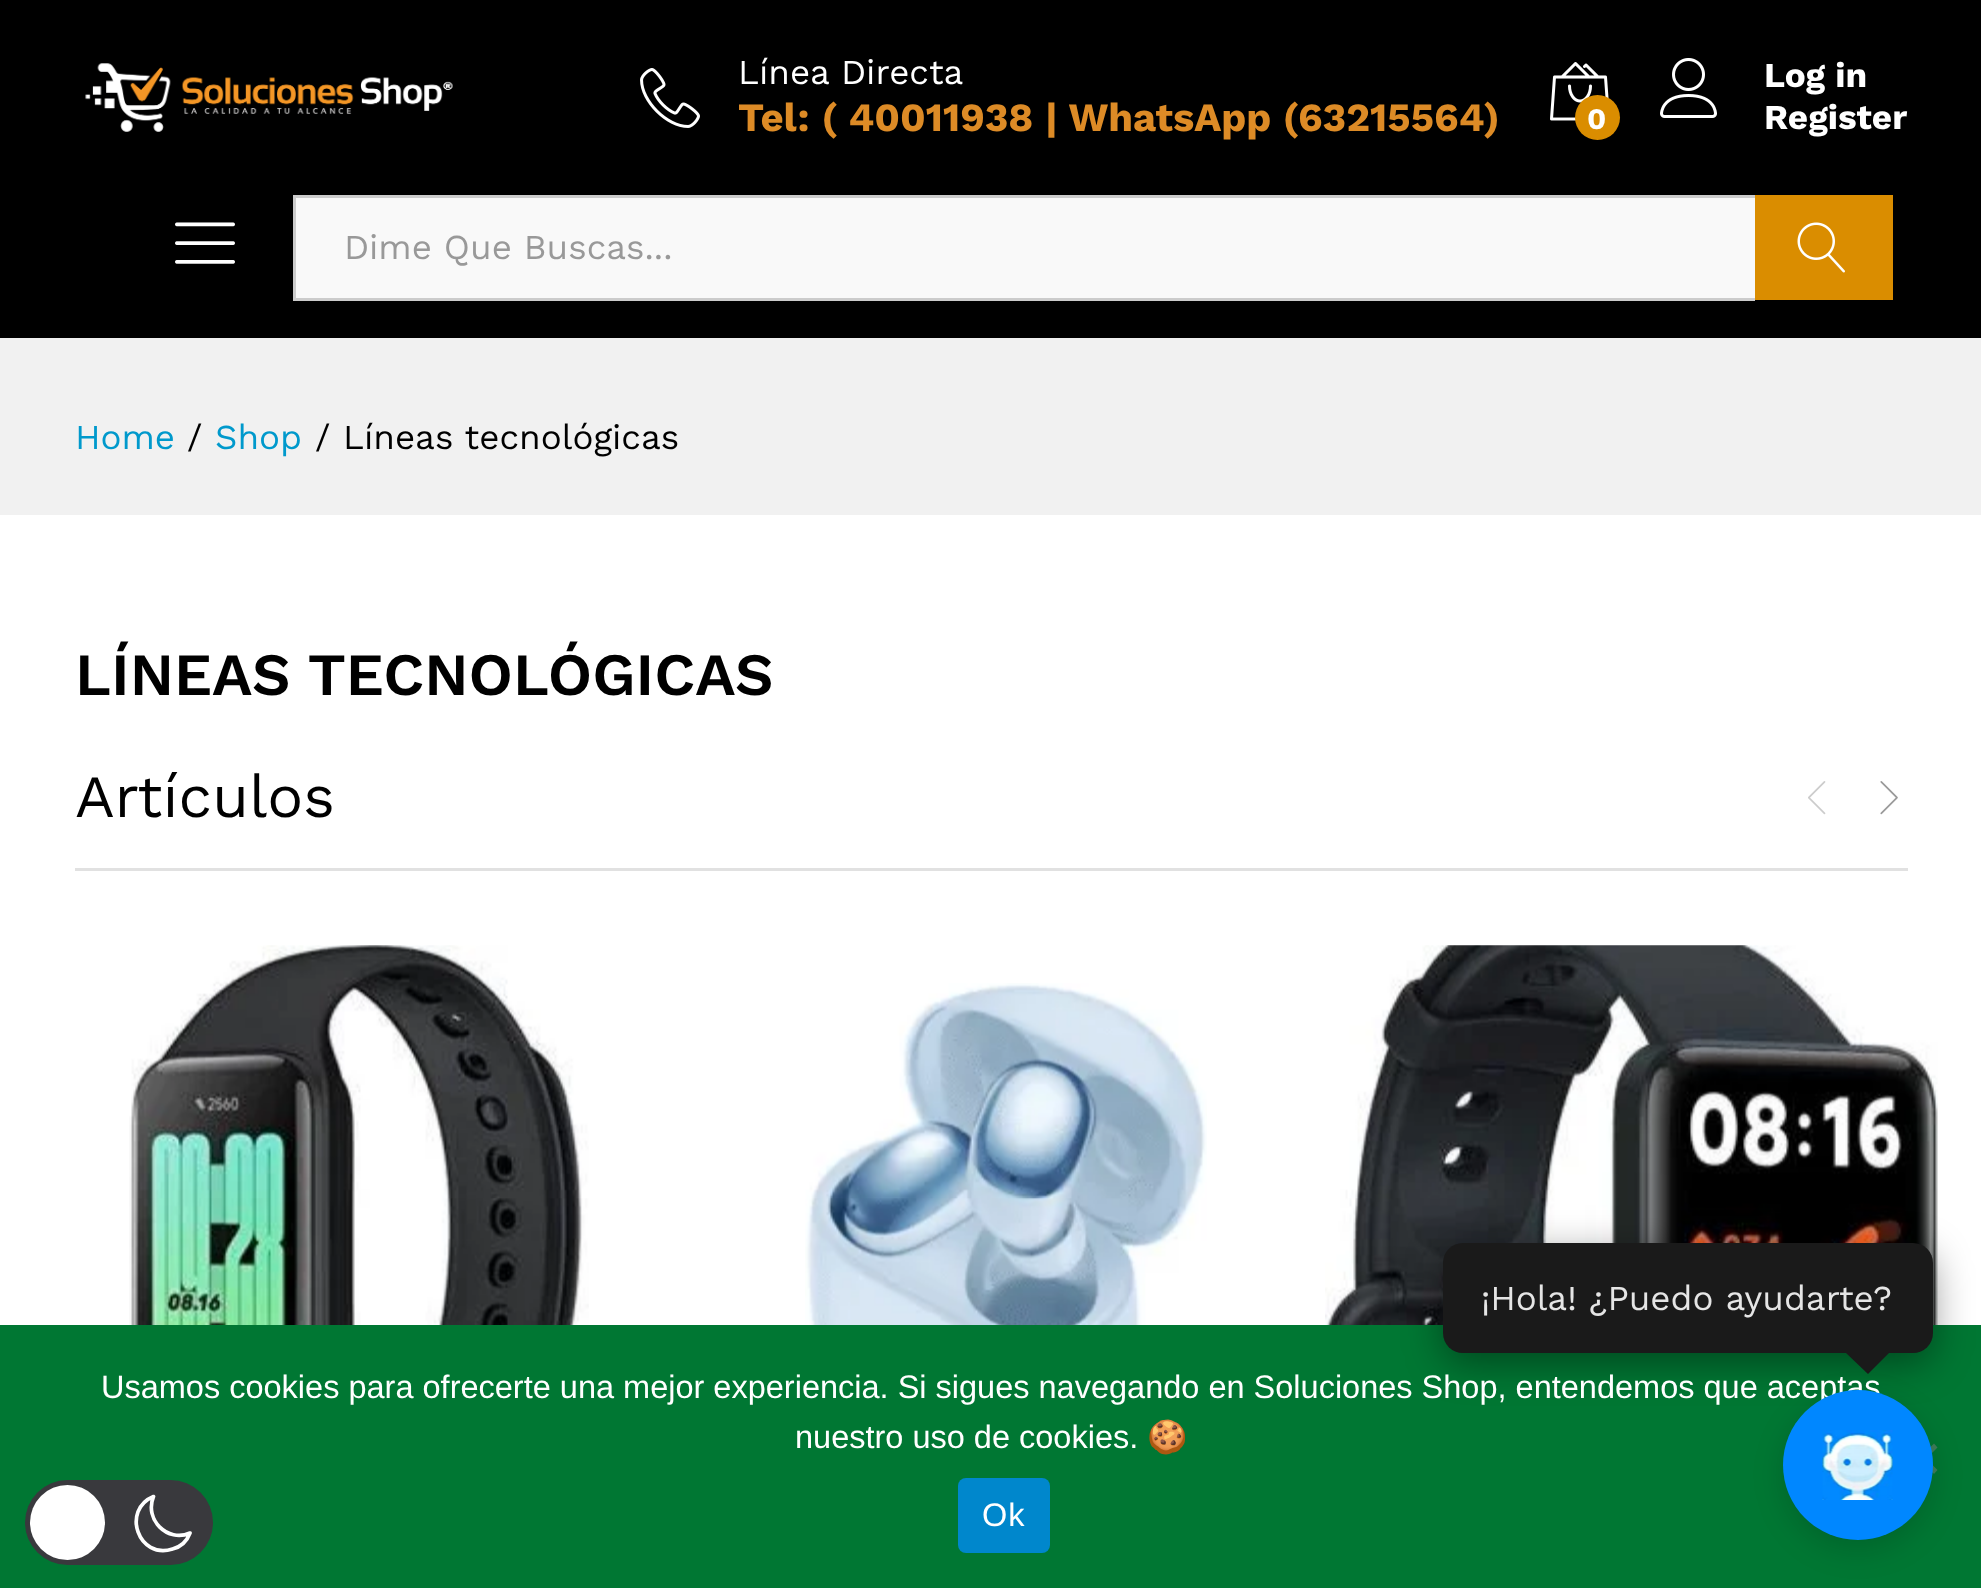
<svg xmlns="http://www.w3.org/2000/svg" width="1981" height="1588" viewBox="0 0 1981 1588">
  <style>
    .t1 { font: 35px Work Sans; fill: #fff; }
    .t2 { font: bold 40px Work Sans; fill: #dd8b26; }
    .t3 { font: bold 30px Work Sans; fill: #fff; }
    .t4 { font: bold 35px Work Sans; fill: #fff; }
    .t5 { font: 35px Work Sans; fill: #999; }
    .t6 { font: 35px Work Sans; fill: #09c; }
    .t7 { font: 35px Work Sans; fill: #000; }
    .t8 { font: 600 60px Work Sans; fill: #000; }
    .t9 { font: 60px Work Sans; fill: #000; }
    .t10 { font: 35px Work Sans; fill: #e5e5e5; }
    .t11 { font: 32.5px Liberation Sans; fill: #fff; }
    .t12 { font: 32.5px Noto Color Emoji; fill: #fff; }
    .t13 { font: 32.5px Liberation Sans; letter-spacing: 1px; fill: #fff; }
  </style>
  <rect width="100%" height="100%" fill="#fff"/>
  <rect x="0" y="0" width="1981" height="338" fill="#000"/>
  <image x="85" y="63" width="368" height="69" href="images/1.png"/>
  <image x="640" y="68" width="60" height="60" href="images/2.png"/>
  <text x="738" y="84" class="t1">Línea Directa</text>
  <text x="738" y="131" class="t2">Tel: ( 40011938 | WhatsApp (63215564)</text>
  <image x="1550" y="62" width="59" height="59" href="images/3.png"/>
  <circle cx="1597.5" cy="117.5" r="22.5" fill="#da8d00"/>
  <text x="1587" y="129" class="t3">0</text>
  <image x="1660" y="58" width="57" height="60" href="images/4.png"/>
  <text x="1764" y="87" class="t4">Log in</text>
  <text x="1764" y="129" class="t4">Register</text>
  <image x="175" y="222" width="60" height="42" href="images/5.png"/>
  <rect x="296" y="198" width="1459" height="100" fill="#f9f9f9"/>
  <rect x="293" y="195" width="1462" height="3" fill="#ccc"/>
  <rect x="293" y="298" width="1462" height="3" fill="#ccc"/>
  <rect x="293" y="195" width="3" height="105" fill="#ccc"/>
  <text x="344" y="259" class="t5">Dime Que Buscas...</text>
  <rect x="1755" y="195" width="138" height="105" fill="#da8d00"/>
  <image x="1797" y="222" width="48" height="51" href="images/6.png"/>
  <rect x="0" y="338" width="1981" height="177" fill="#f1f1f1"/>
  <text x="75" y="449" class="t6">Home</text>
  <text x="187" y="449" class="t7">/</text>
  <text x="215" y="449" class="t6">Shop</text>
  <text x="315" y="449" class="t7">/</text>
  <text x="343" y="449" class="t7">Líneas tecnológicas</text>
  <text x="75" y="695" class="t8">LÍNEAS TECNOLÓGICAS</text>
  <rect x="75" y="868" width="1833" height="3" fill="#e1e1e1"/>
  <text x="75" y="817" class="t9">Artículos</text>
  <image x="1808" y="781" width="18" height="34" href="images/7.png"/>
  <image x="1880" y="781" width="18" height="34" href="images/8.png"/>
  <image x="129" y="945" width="460" height="380" href="images/9.png"/>
  <image x="805" y="983" width="402" height="342" href="images/10.png"/>
  <image x="1325" y="945" width="613" height="380" href="images/11.png"/>
  <rect x="0" y="1325" width="1981" height="263" fill="#073"/>
  <rect x="1443" y="1253" width="490" height="110" rx="20" fill="#00000066" filter="blur(19px)"/>
  <rect x="1443" y="1243" width="490" height="110" rx="20" fill="#1a1a1a"/>
  <text x="1481" y="1310" class="t10">¡Hola! ¿Puedo ayudarte?</text>
  <path d="M1868 1331L1889 1353L1868 1374L1846 1353Z" fill="#1a1a1a"/>
  <path d="M1934 1443.5L1937.5 1447.5L1911 1474L1907.5 1470Z" fill="#407c5a"/>
  <path d="M1907.5 1447.5L1911 1443.5L1937.5 1470L1934 1474Z" fill="#407c5a"/>
  <rect x="1783" y="1400" width="150" height="150" rx="75" fill="#00000026" filter="blur(15px)"/>
  <text x="101" y="1398" class="t11">Usamos cookies para ofrecerte una mejor experiencia. Si sigues navegando en Soluciones Shop, entendemos que aceptas</text>
  <circle cx="1858" cy="1465" r="75" fill="#0087ff"/>
  <image x="1822" y="1430" width="71" height="70" href="images/12.png"/>
  <text x="795" y="1448" class="t11">nuestro uso de cookies.</text>
  <text x="1147" y="1448" class="t12">🍪</text>
  <rect x="958" y="1478" width="92" height="75" rx="8" fill="#0087cc"/>
  <text x="982" y="1526" class="t13">Ok</text>
  <rect x="25" y="1480" width="188" height="85" rx="42.5" fill="#39393d"/>
  <circle cx="67.5" cy="1522.5" r="37.5" fill="#fff"/>
  <path d="M190 1533C167.5 1543 144 1519.5 153.5 1496.5C121 1510 138.5 1560 172.5 1549C180.5 1547 187 1541 190 1533Z" fill="none" stroke="#fff" stroke-width="3.7" stroke-linecap="round" stroke-linejoin="round"/>
</svg>
